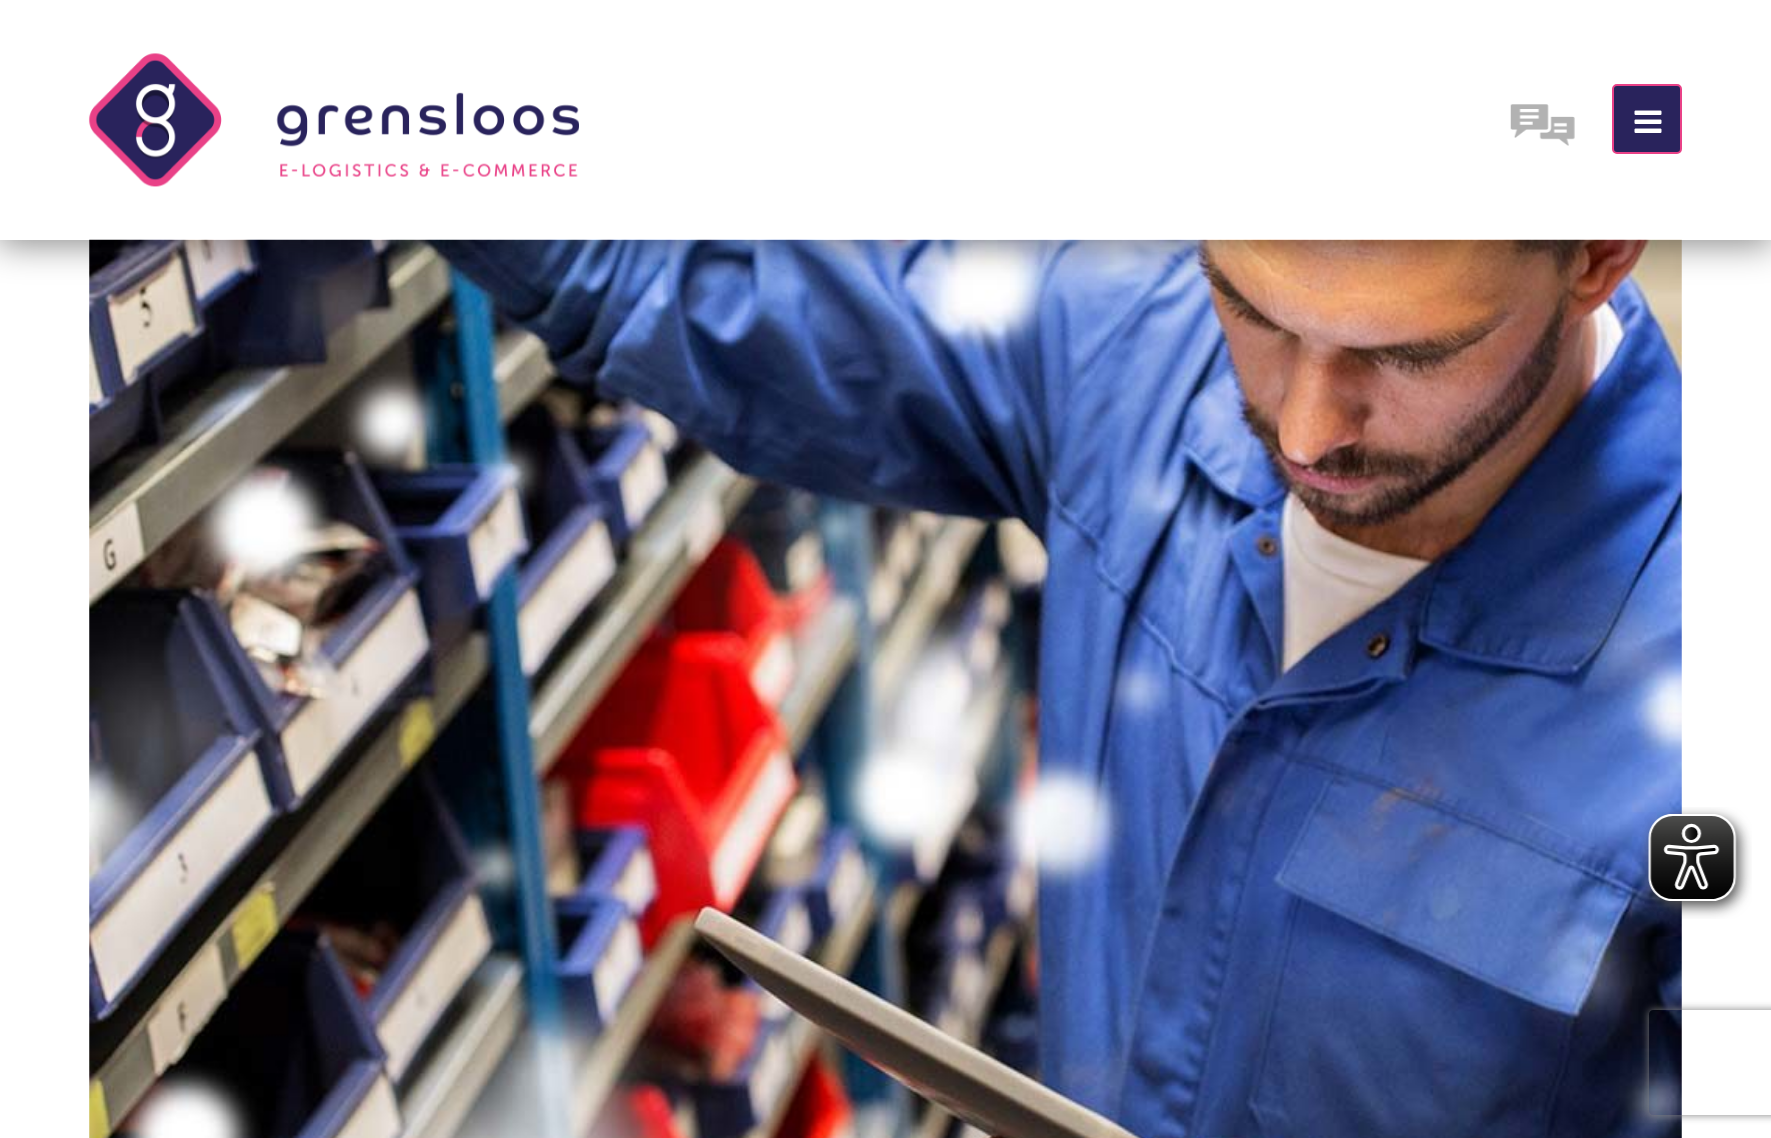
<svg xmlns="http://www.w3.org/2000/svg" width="1771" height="1138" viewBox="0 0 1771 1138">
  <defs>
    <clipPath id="clip1"><path d="M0 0H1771V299H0ZM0 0H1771V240H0Z" clip-rule="evenodd"/></clipPath>
    <clipPath id="clip2"><path d="M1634 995H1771V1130H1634ZM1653 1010H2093C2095 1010 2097 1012 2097 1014V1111C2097 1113 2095 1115 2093 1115H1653C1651 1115 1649 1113 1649 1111V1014C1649 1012 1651 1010 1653 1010Z" clip-rule="evenodd"/></clipPath>
  </defs>
  <rect width="100%" height="100%" fill="#fff"/>
  <image x="89" y="239" width="1593" height="899" href="images/4.png"/>
  <g clip-path="url(#clip1)">
    <rect x="-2" y="2" width="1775" height="243" fill="#00000075" filter="blur(17.5px)"/>
  </g>
  <image x="88" y="53" width="491" height="134" href="images/1.png"/>
  <image x="1510" y="104" width="65" height="42" href="images/2.png"/>
  <rect x="1613" y="85" width="68" height="68" rx="4" fill="#29235c" stroke="#e94187" stroke-width="2"/>
  <image x="1634" y="110" width="28" height="23" href="images/3.png"/>
  <image x="1640" y="807" width="112" height="112" href="images/5.png"/>
  <g clip-path="url(#clip2)">
    <rect x="1649" y="1010" width="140" height="105" rx="4" fill="#808080" filter="blur(4.5px)"/>
  </g>
</svg>
